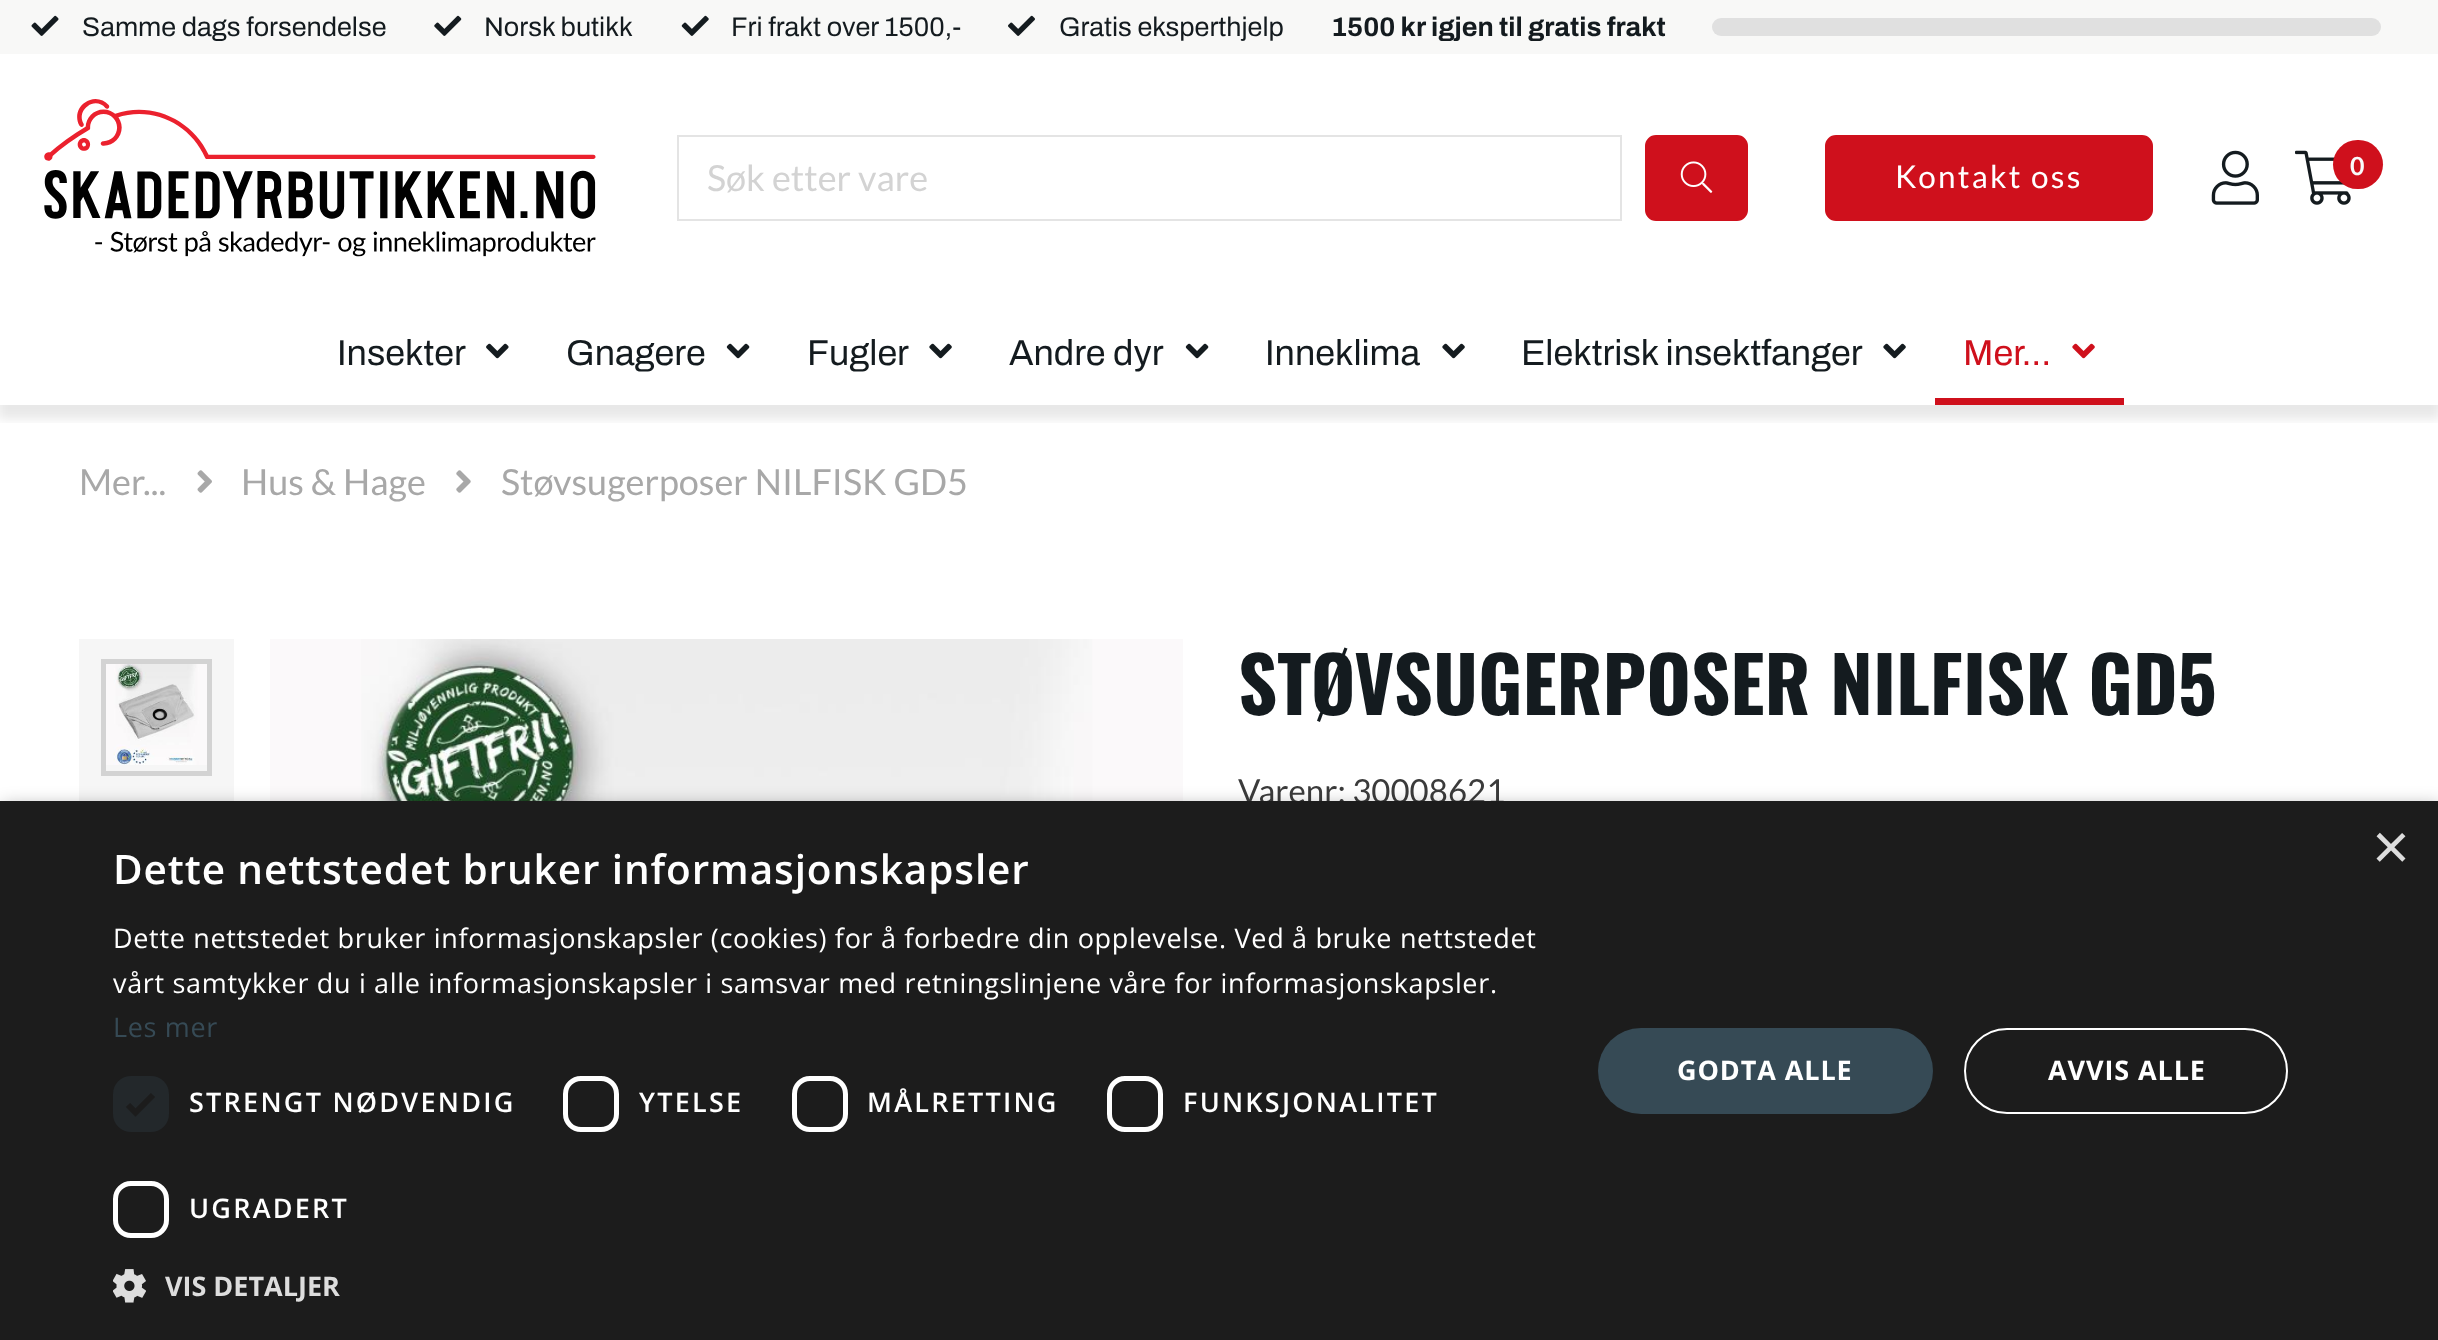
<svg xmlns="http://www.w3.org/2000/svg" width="2438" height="1340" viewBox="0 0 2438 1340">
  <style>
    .t1 { font: 27px Archivo; fill: #141b1f; }
    .t2 { font: bold 27px Archivo; fill: #141b1f; }
    .t3 { font: 36px Lato; fill: #d3d3d3; }
    .t4 { font: 31.5px Lato; letter-spacing: 2.25px; fill: #fff; }
    .t5 { font: bold 25px Lato; fill: #f9fafb; }
    .t6 { font: 36px Archivo; fill: #141b1f; }
    .t7 { font: 36px Archivo; fill: #cf101c; }
    .t8 { font: 36px Lato; fill: #a8a8a8; }
    .t9 { font: bold 76.5px Oswald; fill: #141b1f; }
    .t10 { font: 33px Lato; fill: #3b3b3b; }
    .t11 { font: 65px Liberation Sans; fill: #ddd; }
    .t12 { font: 600 40.5px Open Sans; letter-spacing: 0.9px; fill: #fff; }
    .t13 { font: 27px Open Sans; letter-spacing: 0.67px; fill: #fff; }
    .t14 { font: 27px Open Sans; letter-spacing: 0.67px; fill: #364a55; }
    .t15 { font: 600 27px Open Sans; letter-spacing: 2.25px; fill: #fff; }
    .t16 { font: bold 27px Open Sans; fill: #ddd; }
    .t17 { font: bold 27px Open Sans; letter-spacing: 0.9px; fill: #fff; }
  </style>
  <defs>
    <clipPath id="clip1"><rect x="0" y="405" width="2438" height="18"/></clipPath>
  </defs>
  <rect width="100%" height="100%" fill="#fff"/>
  <rect x="0" y="0" width="2438" height="54" fill="#f8f8f7"/>
  <image x="31" y="15" width="28" height="21" href="images/1.png"/>
  <text x="82" y="36" class="t1">Samme dags forsendelse</text>
  <image x="434" y="15" width="28" height="21" href="images/2.png"/>
  <text x="484" y="36" class="t1">Norsk butikk</text>
  <image x="681" y="15" width="28" height="21" href="images/3.png"/>
  <text x="731" y="36" class="t1">Fri frakt over 1500,-</text>
  <image x="1008" y="15" width="27" height="21" href="images/4.png"/>
  <text x="1059" y="36" class="t1">Gratis eksperthjelp</text>
  <text x="1331" y="36" class="t2">1500 kr igjen til gratis frakt</text>
  <rect x="1712" y="18" width="669" height="18" rx="9" fill="#e0e0e0"/>
  <image x="44" y="99" width="552" height="158" href="images/5.png"/>
  <rect x="678" y="136" width="943" height="84" fill="none" stroke="#e4e4e4" stroke-width="2"/>
  <text x="707" y="191" class="t3">Søk etter vare</text>
  <rect x="1646" y="136" width="101" height="84" rx="10" fill="#cf101c" stroke="#cf101c" stroke-width="2"/>
  <image x="1680" y="161" width="33" height="32" href="images/6.png"/>
  <rect x="1826" y="136" width="326" height="84" rx="10" fill="#cf101c" stroke="#cf101c" stroke-width="2"/>
  <text x="1895" y="188" class="t4">Kontakt oss</text>
  <image x="2211" y="150" width="48" height="55" href="images/7.png"/>
  <image x="2295" y="150" width="56" height="55" href="images/8.png"/>
  <rect x="2333" y="140" width="50" height="49" rx="24.5" fill="#cf101c"/>
  <text x="2350" y="175" class="t5">0</text>
  <g clip-path="url(#clip1)">
    <rect x="-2" y="308" width="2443" height="111" fill="#00000017" filter="blur(5.5px)"/>
  </g>
  <text x="337" y="365" class="t6">Insekter</text>
  <image x="486" y="343" width="23" height="16" href="images/9.png"/>
  <text x="566" y="365" class="t6">Gnagere</text>
  <image x="726" y="343" width="24" height="16" href="images/10.png"/>
  <text x="807" y="365" class="t6">Fugler</text>
  <image x="929" y="343" width="23" height="16" href="images/11.png"/>
  <text x="1009" y="365" class="t6">Andre dyr</text>
  <image x="1185" y="343" width="24" height="16" href="images/10.png"/>
  <text x="1265" y="365" class="t6">Inneklima</text>
  <image x="1442" y="343" width="23" height="16" href="images/11.png"/>
  <text x="1521" y="365" class="t6">Elektrisk insektfanger</text>
  <image x="1883" y="343" width="23" height="16" href="images/11.png"/>
  <rect x="1935" y="398" width="189" height="7" fill="#cf101c"/>
  <text x="1963" y="365" class="t7">Mer...</text>
  <image x="2072" y="343" width="23" height="16" href="images/12.png"/>
  <text x="79" y="495" class="t8">Mer...</text>
  <image x="197" y="470" width="15" height="23" href="images/13.png"/>
  <text x="241" y="495" class="t8">Hus &amp; Hage</text>
  <image x="456" y="470" width="15" height="23" href="images/14.png"/>
  <text x="501" y="495" class="t8">Støvsugerposer NILFISK GD5</text>
  <rect x="79" y="639" width="155" height="162" fill="#f6f6f6"/>
  <rect x="103.5" y="661.5" width="106" height="112" fill="none" stroke="#d3d3d3" stroke-width="5"/>
  <image x="106" y="664" width="101" height="101" href="images/15.png"/>
  <image x="270" y="639" width="913" height="162" href="images/16.png"/>
  <text x="1238" y="715" class="t9">STØVSUGERPOSER NILFISK GD5</text>
  <text x="1238" y="803" class="t10">Varenr: 30008621</text>
  <rect x="2" y="806" width="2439" height="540" fill="#00000059" filter="blur(9px)"/>
  <rect x="0" y="801" width="2438" height="539" fill="#1c1c1c"/>
  <text x="2372" y="869" class="t11">×</text>
  <text x="113" y="884" class="t12">Dette nettstedet bruker informasjonskapsler</text>
  <text x="113" y="948" class="t13">Dette nettstedet bruker informasjonskapsler (cookies) for å forbedre din opplevelse. Ved å bruke nettstedet</text>
  <text x="113" y="993" class="t13">vårt samtykker du i alle informasjonskapsler i samsvar med retningslinjene våre for informasjonskapsler.</text>
  <text x="113" y="1037" class="t14">Les mer</text>
  <rect x="113" y="1076" width="56" height="56" rx="18" fill="#23282b"/>
  <path d="M128 1105L135.5 1112.5L153 1095" fill="none" stroke="#1c1c1c" stroke-width="5.9"/>
  <text x="189" y="1112" class="t15">STRENGT NØDVENDIG</text>
  <rect x="565.5" y="1078.5" width="51" height="51" rx="15.5" fill="none" stroke="#fff" stroke-width="5"/>
  <text x="639" y="1112" class="t15">YTELSE</text>
  <rect x="794.5" y="1078.5" width="51" height="51" rx="15.5" fill="none" stroke="#fff" stroke-width="5"/>
  <text x="867" y="1112" class="t15">MÅLRETTING</text>
  <rect x="1109.5" y="1078.5" width="51" height="51" rx="15.5" fill="none" stroke="#fff" stroke-width="5"/>
  <text x="1183" y="1112" class="t15">FUNKSJONALITET</text>
  <rect x="115.5" y="1183.5" width="51" height="52" rx="15.5" fill="none" stroke="#fff" stroke-width="5"/>
  <text x="189" y="1218" class="t15">UGRADERT</text>
  <image x="113" y="1269" width="33" height="34" href="images/17.png"/>
  <text x="165" y="1296" class="t16">VIS DETALJER</text>
  <rect x="1598" y="1028" width="335" height="86" rx="43" fill="#364a55"/>
  <text x="1677" y="1080" class="t17">GODTA ALLE</text>
  <rect x="1965" y="1029" width="322" height="84" rx="42" fill="none" stroke="#fff" stroke-width="2"/>
  <text x="2048" y="1080" class="t17">AVVIS ALLE</text>
</svg>
